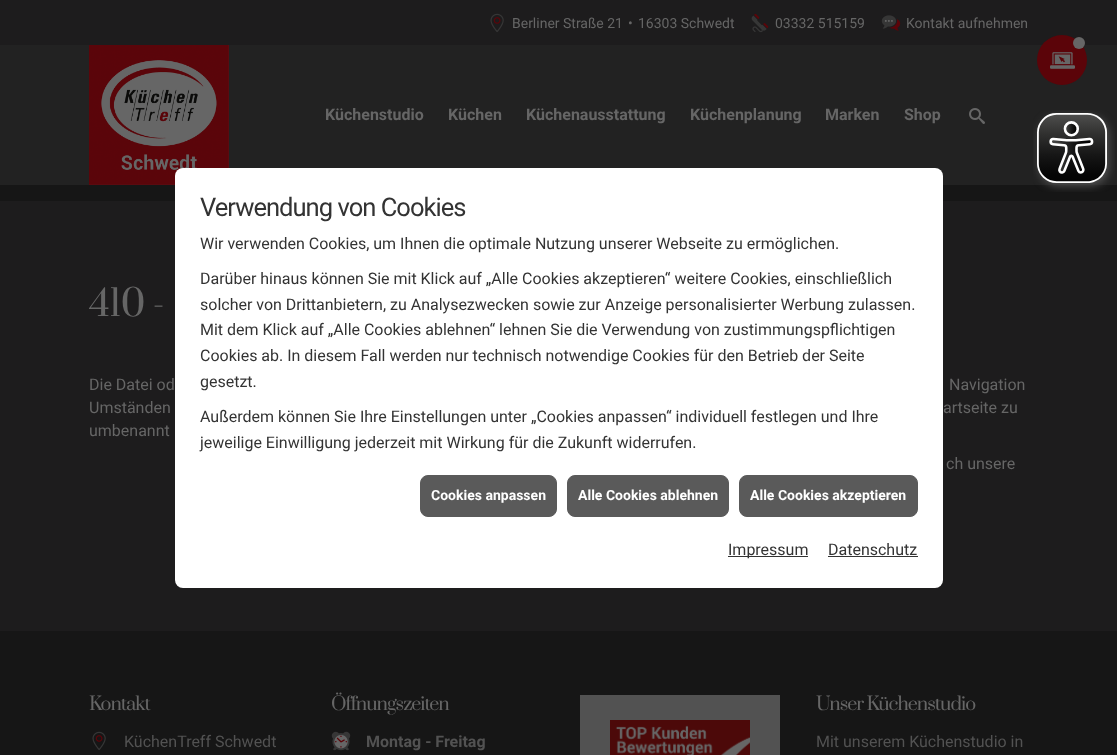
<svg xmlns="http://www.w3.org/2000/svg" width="1117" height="755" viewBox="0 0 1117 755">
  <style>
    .t1 { font: 14px Roboto; fill: #666; }
    .t2 { font: bold 16px Roboto; fill: #666; }
    .t3 { font: 36px Prata; letter-spacing: -1px; fill: #666; }
    .t4 { font: 16px Roboto; fill: #666; }
    .t5 { font: 18px Prata; letter-spacing: -1px; fill: #666; }
    .t6 { font: 16px Roboto; fill: #525252; }
    .t7 { font: bold 16px Roboto; fill: #525252; }
    .t8 { font: 25.6px Roboto; letter-spacing: -1px; fill: #333; }
    .t9 { font: 16px Roboto; fill: #333; }
    .t10 { font: bold 14px Roboto; fill: #fff; }
  </style>
  <rect width="100%" height="100%" fill="#222"/>
  <rect x="0" y="0" width="1117" height="45" fill="#1d1c1d"/>
  <image x="490" y="13" width="14" height="20" href="images/1.png"/>
  <text x="512" y="28" class="t1">Berliner Straße 21</text>
  <text x="628" y="28" class="t1">•</text>
  <text x="638" y="28" class="t1">16303 Schwedt</text>
  <image x="751" y="13" width="18" height="20" href="images/2.png"/>
  <text x="775" y="28" class="t1">03332 515159</text>
  <image x="881" y="15" width="20" height="16" href="images/3.png"/>
  <text x="906" y="28" class="t1">Kontakt aufnehmen</text>
  <image x="89" y="45" width="140" height="140" href="images/4.png"/>
  <text x="325" y="120" class="t2">Küchenstudio</text>
  <text x="448" y="120" class="t2">Küchen</text>
  <text x="526" y="120" class="t2">Küchenausstattung</text>
  <text x="690" y="120" class="t2">Küchenplanung</text>
  <text x="825" y="120" class="t2">Marken</text>
  <text x="904" y="120" class="t2">Shop</text>
  <image x="969" y="108" width="16" height="16" href="images/5.png"/>
  <rect x="0" y="185" width="1117" height="16" fill="#161616"/>
  <rect x="0" y="201" width="1117" height="430" fill="#1d1c1d"/>
  <text x="89" y="316" class="t3">410 -</text>
  <text x="89" y="390" class="t4">Die Datei od</text>
  <text x="89" y="413" class="t4">Umständen</text>
  <text x="89" y="436" class="t4">umbenannt</text>
  <text x="949" y="390" class="t4">Navigation</text>
  <text x="943" y="413" class="t4">artseite zu</text>
  <text x="946" y="469" class="t4">ch unsere</text>
  <rect x="0" y="631" width="1117" height="124" fill="#161616"/>
  <text x="89" y="710" class="t5">Kontakt</text>
  <image x="92" y="731" width="14" height="20" href="images/6.png"/>
  <text x="124" y="747" class="t6">KüchenTreff Schwedt</text>
  <text x="331" y="710" class="t5">Öffnungszeiten</text>
  <image x="331" y="731" width="20" height="20" href="images/7.png"/>
  <text x="366" y="747" class="t7">Montag - Freitag</text>
  <rect x="580" y="695" width="200" height="60" fill="#525252"/>
  <image x="610" y="720" width="140" height="35" href="images/8.png"/>
  <text x="816" y="710" class="t5">Unser Küchenstudio</text>
  <text x="816" y="747" class="t6">Mit unserem Küchenstudio in</text>
  <circle cx="1062" cy="60" r="25" fill="#5b0409"/>
  <circle cx="1079" cy="43" r="6" fill="#666"/>
  <image x="1050" y="52" width="25" height="17" href="images/9.png"/>
  <image x="1033" y="110" width="82" height="82" href="images/10.png"/>
  <rect x="175" y="168" width="768" height="420" rx="8" fill="#fff"/>
  <text x="200" y="216" class="t8">Verwendung von Cookies</text>
  <text x="200" y="249" class="t9">Wir verwenden Cookies, um Ihnen die optimale Nutzung unserer Webseite zu ermöglichen.</text>
  <text x="200" y="284" class="t9">Darüber hinaus können Sie mit Klick auf „Alle Cookies akzeptieren“ weitere Cookies, einschließlich</text>
  <text x="200" y="310" class="t9">solcher von Drittanbietern, zu Analysezwecken sowie zur Anzeige personalisierter Werbung zulassen.</text>
  <text x="200" y="335" class="t9">Mit dem Klick auf „Alle Cookies ablehnen“ lehnen Sie die Verwendung von zustimmungspflichtigen</text>
  <text x="200" y="361" class="t9">Cookies ab. In diesem Fall werden nur technisch notwendige Cookies für den Betrieb der Seite</text>
  <text x="200" y="387" class="t9">gesetzt.</text>
  <text x="200" y="422" class="t9">Außerdem können Sie Ihre Einstellungen unter „Cookies anpassen“ individuell festlegen und Ihre</text>
  <text x="200" y="448" class="t9">jeweilige Einwilligung jederzeit mit Wirkung für die Zukunft widerrufen.</text>
  <rect x="420.5" y="475.5" width="136" height="41" rx="7.5" fill="#5a5a5a" stroke="#5a5a5a"/>
  <text x="431" y="500" class="t10">Cookies anpassen</text>
  <rect x="567.5" y="475.5" width="161" height="41" rx="7.5" fill="#5a5a5a" stroke="#5a5a5a"/>
  <text x="578" y="500" class="t10">Alle Cookies ablehnen</text>
  <rect x="739.5" y="475.5" width="178" height="41" rx="7.5" fill="#5a5a5a" stroke="#5a5a5a"/>
  <text x="750" y="500" class="t10">Alle Cookies akzeptieren</text>
  <rect x="728" y="556" width="80" height="1" fill="#333"/>
  <text x="728" y="555" class="t9">Impressum</text>
  <text x="828" y="555" class="t9">Datenschutz</text>
  <rect x="828" y="556" width="90" height="1" fill="#333"/>
</svg>
